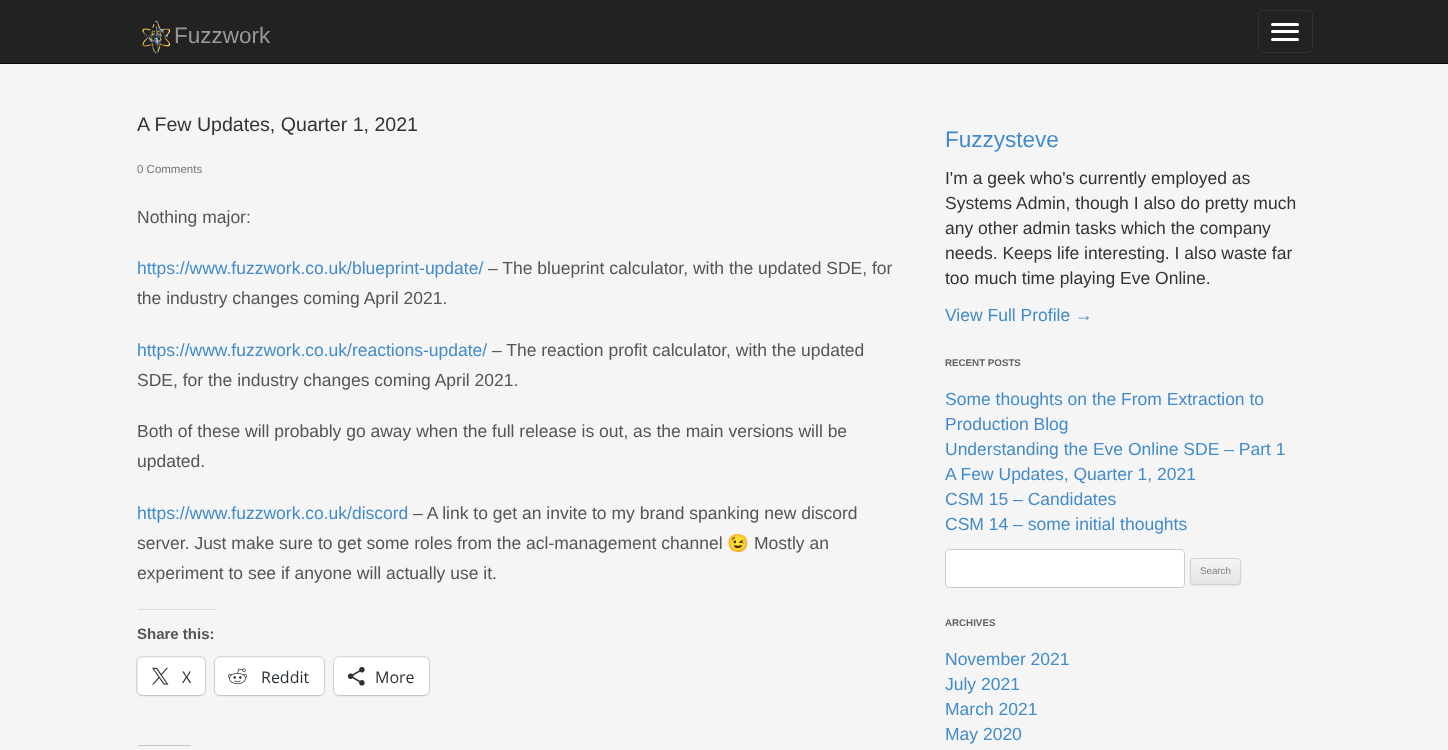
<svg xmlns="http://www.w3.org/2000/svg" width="1448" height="750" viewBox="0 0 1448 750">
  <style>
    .t1 { font: 22.5px Liberation Sans; fill: #999; }
    .t2 { font: 19.6px Liberation Sans; fill: #333; }
    .t3 { font: 11.5px Liberation Sans; fill: #757575; }
    .t4 { font: 17.5px Liberation Sans; fill: #555; }
    .t5 { font: 17.5px Liberation Sans; fill: #428bca; }
    .t6 { font: 17.5px Noto Color Emoji; fill: #555; }
    .t7 { font: bold 15px Liberation Sans; fill: #555; }
    .t8 { font: 16px Open Sans; fill: #2c3338; }
    .t9 { font: 22.5px Liberation Sans; fill: #428bca; }
    .t10 { font: 17.5px Liberation Sans; fill: #333; }
    .t11 { font: bold 9.75px Liberation Sans; fill: #636363; }
    .t12 { font: 9.75px Liberation Sans; fill: #7c7c7c; }
  </style>
  <defs>
    <clipPath id="clip1"><rect x="1190" y="558" width="51" height="27" rx="4"/></clipPath>
    <linearGradient id="g1" gradientUnits="userSpaceOnUse" x1="1216" y1="559" x2="1216" y2="584"><stop offset="0" stop-color="#f4f4f4"/><stop offset="1" stop-color="#e6e6e6"/></linearGradient>
  </defs>
  <rect width="100%" height="100%" fill="#f5f5f5"/>
  <rect x="0" y="0" width="1448" height="63" fill="#222"/>
  <rect x="0" y="63" width="1448" height="1" fill="#080808"/>
  <image x="142" y="21" width="29" height="33" href="images/1.png"/>
  <text x="174" y="43" class="t1">Fuzzwork</text>
  <rect x="1258.5" y="10.5" width="54" height="42" rx="4.5" fill="none" stroke="#333"/>
  <rect x="1271" y="23" width="28" height="3" rx="1.5" fill="#fff"/>
  <rect x="1271" y="30" width="28" height="3" rx="1.5" fill="#fff"/>
  <rect x="1271" y="38" width="28" height="3" rx="1.5" fill="#fff"/>
  <text x="137" y="131" class="t2">A Few Updates, Quarter 1, 2021</text>
  <text x="137" y="173" class="t3">0 Comments</text>
  <text x="137" y="223" class="t4">Nothing major:</text>
  <text x="137" y="274" class="t5">https://www.fuzzwork.co.uk/blueprint-update/</text>
  <text x="488" y="274" class="t4">– The blueprint calculator, with the updated SDE, for</text>
  <text x="137" y="304" class="t4">the industry changes coming April 2021.</text>
  <text x="137" y="356" class="t5">https://www.fuzzwork.co.uk/reactions-update/</text>
  <text x="492" y="356" class="t4">– The reaction profit calculator, with the updated</text>
  <text x="137" y="386" class="t4">SDE, for the industry changes coming April 2021.</text>
  <text x="137" y="437" class="t4">Both of these will probably go away when the full release is out, as the main versions will be</text>
  <text x="137" y="467" class="t4">updated.</text>
  <text x="137" y="519" class="t5">https://www.fuzzwork.co.uk/discord</text>
  <text x="413" y="519" class="t4">– A link to get an invite to my brand spanking new discord</text>
  <text x="137" y="549" class="t4">server. Just make sure to get some roles from the acl-management channel</text>
  <text x="727" y="549" class="t6">😉</text>
  <text x="754" y="549" class="t4">Mostly an</text>
  <text x="137" y="579" class="t4">experiment to see if anyone will actually use it.</text>
  <rect x="138" y="609" width="77" height="1" fill="#dcdcde"/>
  <text x="137" y="639" class="t7">Share this:</text>
  <rect x="136.5" y="656.5" width="69" height="39" rx="5.5" fill="none" stroke="#d8d8d8"/>
  <rect x="138" y="659" width="67" height="37" rx="5" fill="#0000001f" filter="blur(1px)"/>
  <rect x="138" y="658" width="67" height="37" rx="5" fill="#fff"/>
  <image x="152" y="667" width="17" height="18" href="images/2.png"/>
  <text x="182" y="683" class="t8">X</text>
  <rect x="214.5" y="656.5" width="110" height="39" rx="5.5" fill="none" stroke="#d8d8d8"/>
  <rect x="215" y="659" width="109" height="37" rx="5" fill="#0000001f" filter="blur(1px)"/>
  <rect x="215" y="658" width="109" height="37" rx="5" fill="#fff"/>
  <image x="228" y="668" width="19" height="17" href="images/3.png"/>
  <text x="261" y="683" class="t8">Reddit</text>
  <rect x="333.5" y="656.5" width="96" height="39" rx="5.5" fill="none" stroke="#d8d8d8"/>
  <rect x="334" y="659" width="95" height="37" rx="5" fill="#0000001f" filter="blur(1px)"/>
  <rect x="334" y="658" width="95" height="37" rx="5" fill="#fff"/>
  <image x="347" y="666" width="18" height="20" href="images/4.png"/>
  <text x="375" y="683" class="t8">More</text>
  <rect x="138" y="745" width="53" height="1" fill="#c4c4c4"/>
  <text x="945" y="147" class="t9">Fuzzysteve</text>
  <text x="945" y="184" class="t10">I'm a geek who's currently employed as</text>
  <text x="945" y="209" class="t10">Systems Admin, though I also do pretty much</text>
  <text x="945" y="234" class="t10">any other admin tasks which the company</text>
  <text x="945" y="259" class="t10">needs. Keeps life interesting. I also waste far</text>
  <text x="945" y="284" class="t10">too much time playing Eve Online.</text>
  <text x="945" y="321" class="t5">View Full Profile →</text>
  <text x="945" y="366" class="t11">RECENT POSTS</text>
  <text x="945" y="405" class="t5">Some thoughts on the From Extraction to</text>
  <text x="945" y="430" class="t5">Production Blog</text>
  <text x="945" y="455" class="t5">Understanding the Eve Online SDE – Part 1</text>
  <text x="945" y="480" class="t5">A Few Updates, Quarter 1, 2021</text>
  <text x="945" y="505" class="t5">CSM 15 – Candidates</text>
  <text x="945" y="530" class="t5">CSM 14 – some initial thoughts</text>
  <rect x="945.5" y="549.5" width="239" height="38" rx="3.5" fill="#fff" stroke="#ccc"/>
  <rect x="1190" y="559" width="51" height="27" rx="4" fill="#4040401a" filter="blur(1px)"/>
  <g clip-path="url(#clip1)">
    <rect x="1190" y="559" width="51" height="25" fill="url(#g1)"/>
  </g>
  <rect x="1190.5" y="558.5" width="50" height="26" rx="3.5" fill="none" stroke="#d2d2d2"/>
  <text x="1200" y="574" class="t12">Search</text>
  <text x="945" y="626" class="t11">ARCHIVES</text>
  <text x="945" y="665" class="t5">November 2021</text>
  <text x="945" y="690" class="t5">July 2021</text>
  <text x="945" y="715" class="t5">March 2021</text>
  <text x="945" y="740" class="t5">May 2020</text>
</svg>
